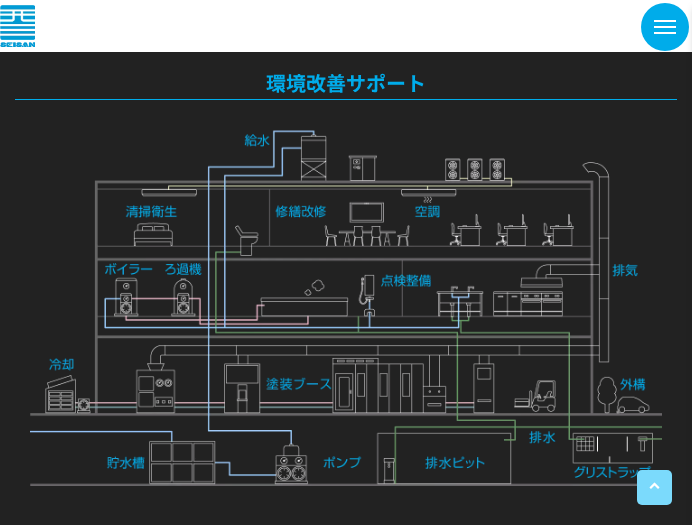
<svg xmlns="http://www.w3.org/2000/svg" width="692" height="525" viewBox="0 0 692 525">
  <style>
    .t1 { font: bold 20px Noto Sans JP; fill: #00acea; }
  </style>
  <rect width="100%" height="100%" fill="#fff"/>
  <image x="0" y="5" width="35" height="42" href="images/1.png"/>
  <circle cx="665" cy="27" r="24" fill="#00acea"/>
  <rect x="654" y="20" width="22" height="2" fill="#fff"/>
  <rect x="654" y="26" width="22" height="2" fill="#fff"/>
  <rect x="654" y="32" width="22" height="2" fill="#fff"/>
  <rect x="0" y="52" width="692" height="473" fill="#222"/>
  <image x="30" y="130" width="632" height="356" href="images/2.png"/>
  <rect x="15" y="99" width="662" height="1" fill="#00acea"/>
  <text x="266" y="91" class="t1">環境改善サポート</text>
  <rect x="637" y="470" width="35" height="35" rx="5" fill="#7bdafc"/>
  <image x="649" y="482" width="11" height="7" href="images/3.png"/>
  <rect x="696" y="8" width="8" height="517" fill="#00000066" filter="blur(4px)"/>
</svg>
